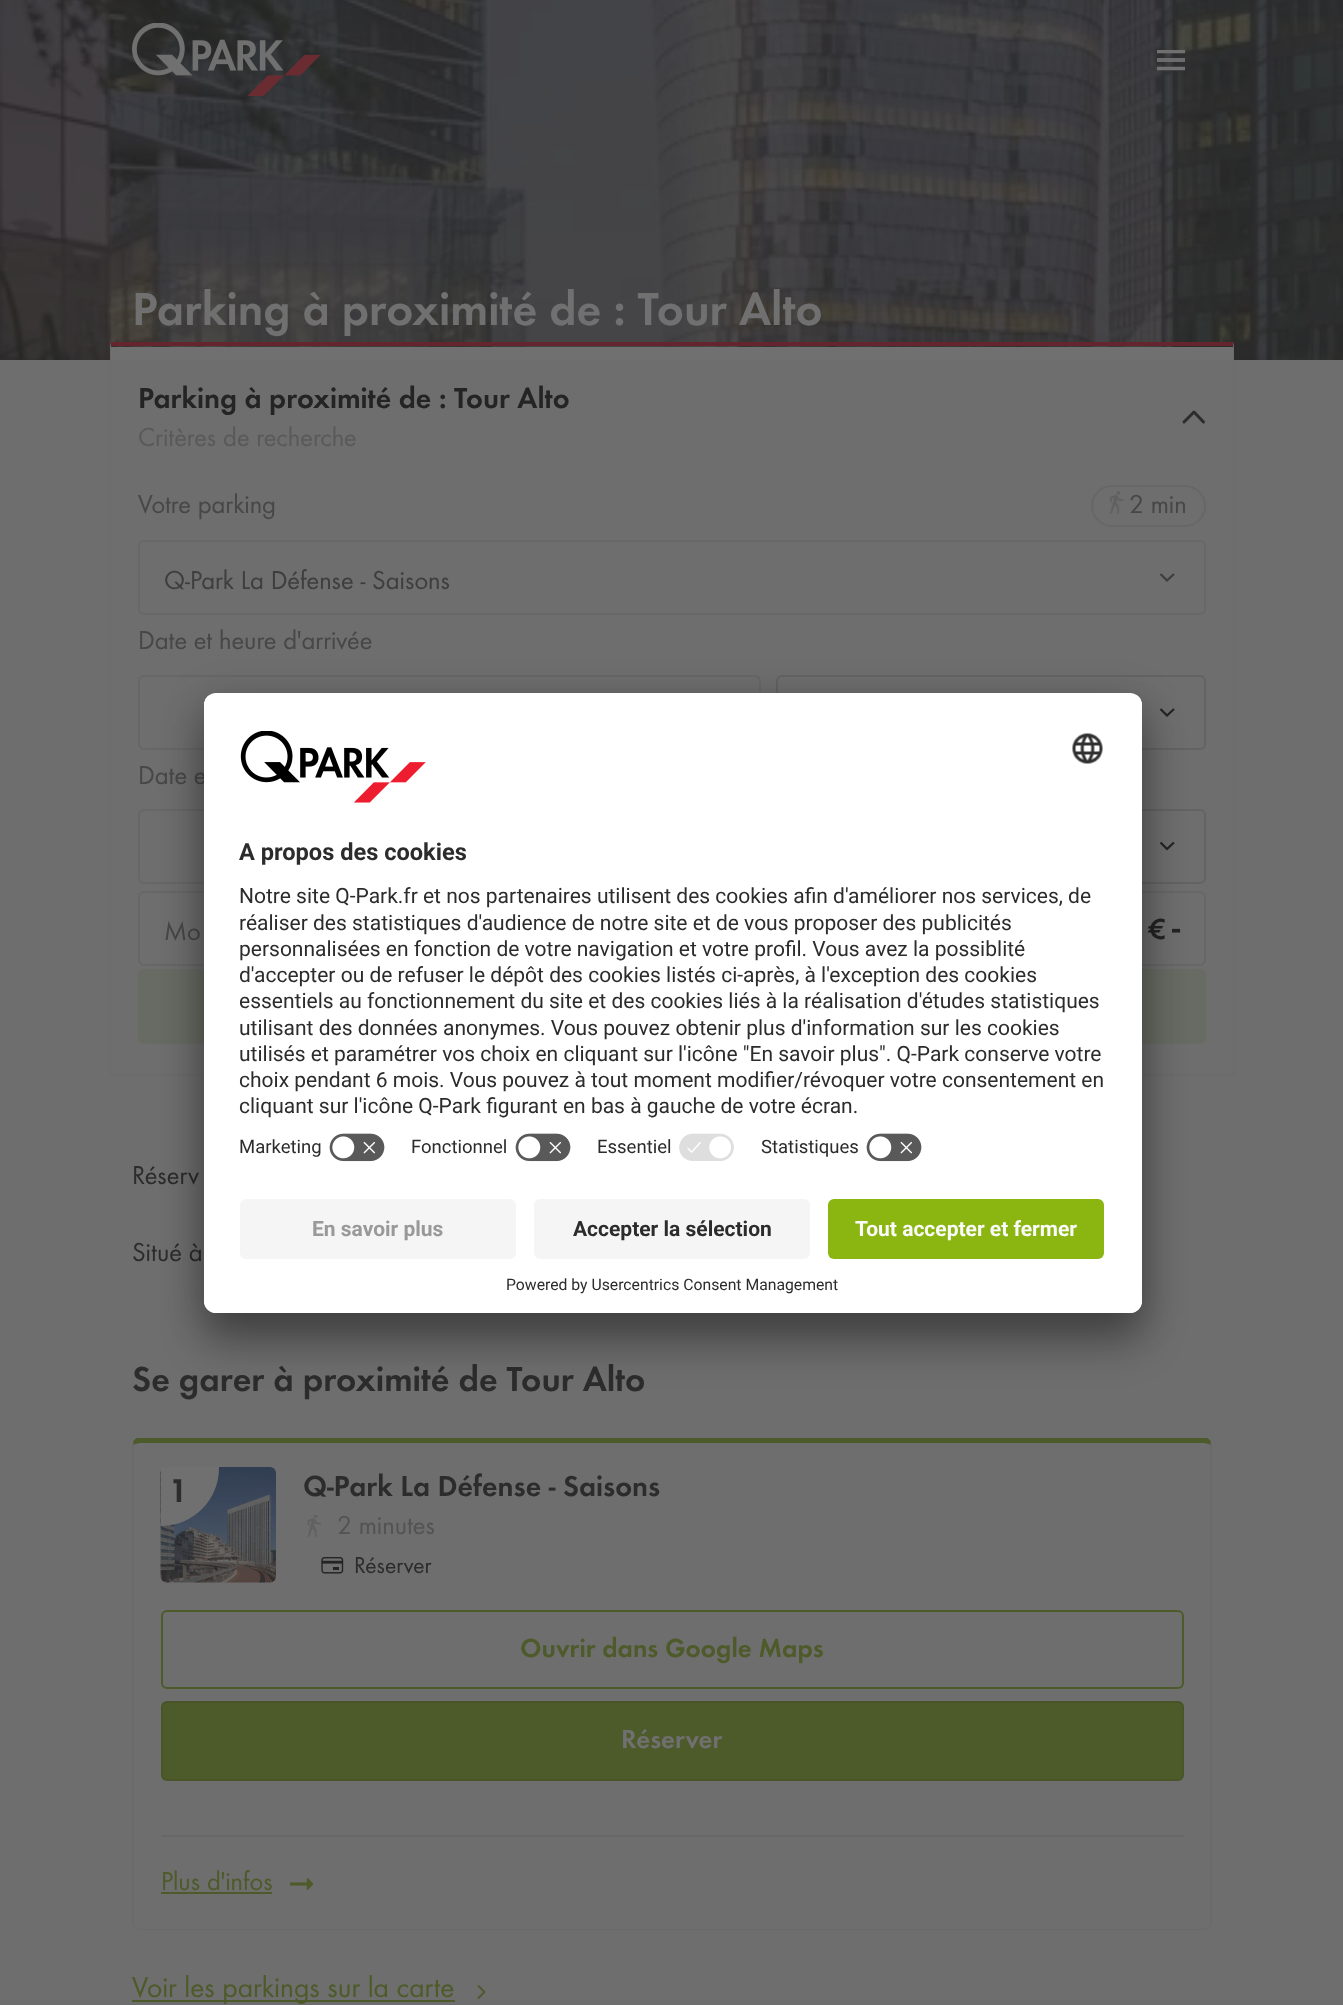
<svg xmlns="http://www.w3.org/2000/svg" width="1343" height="2005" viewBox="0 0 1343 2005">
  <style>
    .t1 { font: 48px Futura; fill: #707070; }
    .t2 { font: 30px Futura; fill: #242424; }
    .t3 { font: 27px 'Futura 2'; fill: #595959; }
    .t4 { font: 27px 'Futura 2'; fill: #474747; }
    .t5 { font: 27px 'Futura 2'; fill: #3e3e3e; }
    .t6 { font: 36px Futura; fill: #242424; }
    .t7 { font: 27px 'Futura 2'; fill: #2c2c2c; }
    .t8 { font: 36px Futura; fill: #2c2c2c; }
    .t9 { font: 34px Futura; fill: #2c2c2c; }
    .t10 { font: 30px Futura; fill: #2c2c2c; }
    .t11 { font: 27px 'Futura 2'; fill: #535353; }
    .t12 { font: 24px 'Futura 2'; fill: #2c2c2c; }
    .t13 { font: 27px Futura; fill: #4d5a29; }
    .t14 { font: 27px Futura; fill: #707070; }
    .t15 { font: 27px 'Futura 2'; fill: #4d5a29; }
    .t16 { font: 30px 'Futura 2'; fill: #4d5a29; }
    .t17 { font: bold 23.6px Roboto; fill: #2c2c2c; }
    .t18 { font: 21px Roboto; fill: #2c2c2c; }
    .t19 { font: 18.5px Roboto; fill: #2c2c2c; }
    .t20 { font: bold 21px Roboto; fill: #999; }
    .t21 { font: bold 21px Roboto; fill: #2c2c2c; }
    .t22 { font: bold 21px Roboto; fill: #fafafa; }
    .t23 { font: 15.75px Roboto; fill: #2c2c2c; }
  </style>
  <defs>
    <clipPath id="clip1"><rect x="1157" y="50" width="31" height="21"/></clipPath>
    <clipPath id="clip2"><rect x="1160" y="842" width="15" height="9"/></clipPath>
    <clipPath id="clip3"><rect x="204" y="693" width="938" height="620" rx="12"/></clipPath>
    <clipPath id="clip4"><path d="M216 693H1130C1136.5 693 1142 698.5 1142 705V1187H204V705C204 698.5 209.5 693 216 693Z"/></clipPath>
  </defs>
  <rect width="100%" height="100%" fill="#6e6e6e"/>
  <image x="0" y="0" width="1343" height="360" href="images/2.png"/>
  <image x="132" y="23" width="189" height="73" href="images/1.png"/>
  <rect x="1157" y="58" width="28" height="4" fill="#707070ed"/>
  <g clip-path="url(#clip1)">
    <path d="M1155 68.5H1185M1155 51.5H1185" fill="none" stroke="#707070" stroke-width="3.7"/>
  </g>
  <text x="132" y="325" class="t1">Parking à proximité de : Tour Alto</text>
  <rect x="111" y="347" width="1122" height="13" fill="#707070"/>
  <path d="M110 342H1234L1233 346H111Z" fill="#65252f"/>
  <path d="M1234 342V1076L1233 1074V346Z" fill="#6b6b6b"/>
  <rect x="110" y="1074" width="1125" height="2" fill="#6b6b6b"/>
  <path d="M110 1076V342L111 346V1074Z" fill="#6b6b6b"/>
  <text x="138" y="408" class="t2">Parking à proximité de : Tour Alto</text>
  <text x="138" y="446" class="t3">Critères de recherche</text>
  <path d="M1184 422L1194 412L1203.5 422" fill="none" stroke="#2c2c2c" stroke-width="3" stroke-linecap="round" stroke-linejoin="round"/>
  <text x="138" y="513" class="t4">Votre parking</text>
  <rect x="1092" y="486" width="113" height="40" rx="20" fill="none" stroke="#676767" stroke-width="2"/>
  <image x="1110" y="491" width="14" height="23" href="images/3.png"/>
  <text x="1129" y="513" class="t4">2 min</text>
  <rect x="139" y="541" width="1066" height="73" rx="5" fill="none" stroke="#686868" stroke-width="2"/>
  <text x="164" y="589" class="t5">Q-Park La Défense - Saisons</text>
  <path d="M1160.5 574L1167 580.5L1174 574" fill="none" stroke="#3e3e3e" stroke-width="2.2"/>
  <text x="138" y="649" class="t4">Date et heure d'arrivée</text>
  <rect x="139" y="676" width="621" height="73" rx="5" fill="none" stroke="#676767" stroke-width="2"/>
  <rect x="777" y="676" width="428" height="73" rx="5" fill="none" stroke="#636363" stroke-width="2"/>
  <path d="M1160.5 709L1167 715.5L1174 709" fill="none" stroke="#242424" stroke-width="2.2"/>
  <text x="138" y="784" class="t4">Date e</text>
  <rect x="139" y="810" width="621" height="73" rx="5" fill="none" stroke="#676767" stroke-width="2"/>
  <rect x="777" y="810" width="428" height="73" rx="5" fill="none" stroke="#636363" stroke-width="2"/>
  <g clip-path="url(#clip2)">
    <path d="M1160.5 842.5L1167 849L1174 842.5" fill="none" stroke="#242424" stroke-width="2.2"/>
  </g>
  <rect x="139" y="892" width="1066" height="73" rx="5" fill="none" stroke="#676767" stroke-width="2"/>
  <text x="164" y="940" class="t4">Mo</text>
  <text x="1148" y="939" class="t2">€</text>
  <text x="1172" y="939" class="t6">-</text>
  <rect x="139" y="970" width="1066" height="73" rx="5" fill="#686b63" stroke="#686b63" stroke-width="2"/>
  <text x="132" y="1184" class="t7">Réserv</text>
  <text x="132" y="1261" class="t7">Situé à</text>
  <text x="132" y="1391" class="t8">Se garer à proximité de Tour Alto</text>
  <path d="M140 1443C137 1443 135 1444 134 1445L133 1442C134 1440 135 1439 137 1438H1207C1209 1439 1210 1440 1211 1442L1210 1445C1209 1444 1207 1443 1204 1443Z" fill="#4d5a29"/>
  <path d="M1212 1923V1446L1211 1442L1210 1445V1923C1210 1924 1210 1926 1209 1927L1210 1928C1211 1927 1212 1925 1212 1923Z" fill="#2424240d"/>
  <path d="M1210 1928C1208 1929 1206 1930 1204 1930H140C138 1930 136 1929 134 1928L135 1927C136 1928 138 1929 140 1929H1204C1206 1929 1208 1928 1209 1927Z" fill="#2424240d"/>
  <path d="M132 1446V1923C132 1925 133 1927 134 1928L135 1927C134 1926 134 1924 134 1923V1445L133 1442Z" fill="#2424240d"/>
  <image x="160" y="1467" width="116" height="116" href="images/4.png"/>
  <path d="M161 1467H219V1468C219 1500 193 1526 161 1526Z" fill="#707070"/>
  <text x="169" y="1502" class="t9">1</text>
  <text x="303" y="1496" class="t10">Q-Park La Défense - Saisons</text>
  <image x="307" y="1515" width="14" height="22" href="images/5.png"/>
  <text x="337" y="1534" class="t11">2 minutes</text>
  <image x="321" y="1557" width="23" height="17" href="images/6.png"/>
  <text x="354" y="1573" class="t12">Réserver</text>
  <rect x="162" y="1611" width="1021" height="77" rx="5" fill="none" stroke="#4d5a29" stroke-width="2"/>
  <text x="520" y="1657" class="t13">Ouvrir dans Google Maps</text>
  <rect x="161" y="1701" width="1023" height="80" rx="6" fill="#4d5a29"/>
  <rect x="162" y="1702" width="1021" height="78" rx="5" fill="none" stroke="#2424241a" stroke-width="2"/>
  <text x="621" y="1748" class="t14">Réserver</text>
  <rect x="161" y="1835" width="1023" height="2" fill="#676767"/>
  <text x="161" y="1890" class="t15">Plus d'infos</text>
  <rect x="161" y="1892" width="111" height="2" fill="#4d5a29"/>
  <image x="290" y="1878" width="24" height="12" href="images/7.png"/>
  <rect x="132" y="2000" width="323" height="2" fill="#4d5a29"/>
  <text x="132" y="1997" class="t16">Voir les parkings sur la carte</text>
  <path d="M478.5 1986L484.5 1992L478.5 1998" fill="none" stroke="#4d5a29" stroke-width="1.8" stroke-linecap="round" stroke-linejoin="round"/>
  <rect x="204" y="723" width="938" height="620" rx="12" fill="#0000004d" filter="blur(21px)"/>
  <rect x="204" y="701" width="938" height="619" rx="12" fill="#00000038" filter="blur(19.5px)"/>
  <rect x="204" y="693" width="938" height="620" rx="12" fill="#fff"/>
  <g clip-path="url(#clip3)">
    <g clip-path="url(#clip4)">
      <rect x="204" y="695" width="938" height="492" fill="#fff"/>
      <rect x="204" y="695" width="938" height="432" fill="#fff"/>
    </g>
  </g>
  <image x="240" y="731" width="186" height="72" href="images/8.png"/>
  <image x="1072" y="733" width="31" height="31" href="images/9.png"/>
  <text x="239" y="860" class="t17">A propos des cookies</text>
  <text x="239" y="903" class="t18">Notre site Q-Park.fr et nos partenaires utilisent des cookies afin d'améliorer nos services, de</text>
  <text x="239" y="930" class="t18">réaliser des statistiques d'audience de notre site et de vous proposer des publicités</text>
  <text x="239" y="956" class="t18">personnalisées en fonction de votre navigation et votre profil. Vous avez la possiblité</text>
  <text x="239" y="982" class="t18">d'accepter ou de refuser le dépôt des cookies listés ci-après, à l'exception des cookies</text>
  <text x="239" y="1008" class="t18">essentiels au fonctionnement du site et des cookies liés à la réalisation d'études statistiques</text>
  <text x="239" y="1035" class="t18">utilisant des données anonymes. Vous pouvez obtenir plus d'information sur les cookies</text>
  <text x="239" y="1061" class="t18">utilisés et paramétrer vos choix en cliquant sur l'icône "En savoir plus". Q-Park conserve votre</text>
  <text x="239" y="1087" class="t18">choix pendant 6 mois. Vous pouvez à tout moment modifier/révoquer votre consentement en</text>
  <text x="239" y="1113" class="t18">cliquant sur l'icône Q-Park figurant en bas à gauche de votre écran.</text>
  <text x="239" y="1153" class="t19">Marketing</text>
  <image x="329" y="1133" width="56" height="29" href="images/10.png"/>
  <text x="411" y="1153" class="t19">Fonctionnel</text>
  <image x="515" y="1133" width="56" height="29" href="images/10.png"/>
  <text x="597" y="1153" class="t19">Essentiel</text>
  <image x="679" y="1133" width="55" height="28" href="images/11.png"/>
  <text x="761" y="1153" class="t19">Statistiques</text>
  <image x="866" y="1133" width="56" height="29" href="images/10.png"/>
  <path d="M204 1187H1142V1301C1142 1307.5 1136.5 1313 1130 1313H216C209.5 1313 204 1307.5 204 1301Z" fill="#fff"/>
  <rect x="240" y="1199" width="276" height="60" rx="6" fill="#f5f5f5"/>
  <text x="312" y="1236" class="t20">En savoir plus</text>
  <rect x="534" y="1199" width="276" height="60" rx="6" fill="#f5f5f5"/>
  <text x="573" y="1236" class="t21">Accepter la sélection</text>
  <rect x="828" y="1199" width="276" height="60" rx="6" fill="#8bb611"/>
  <text x="855" y="1236" class="t22">Tout accepter et fermer</text>
  <text x="506" y="1290" class="t23">Powered by Usercentrics Consent Management</text>
</svg>
